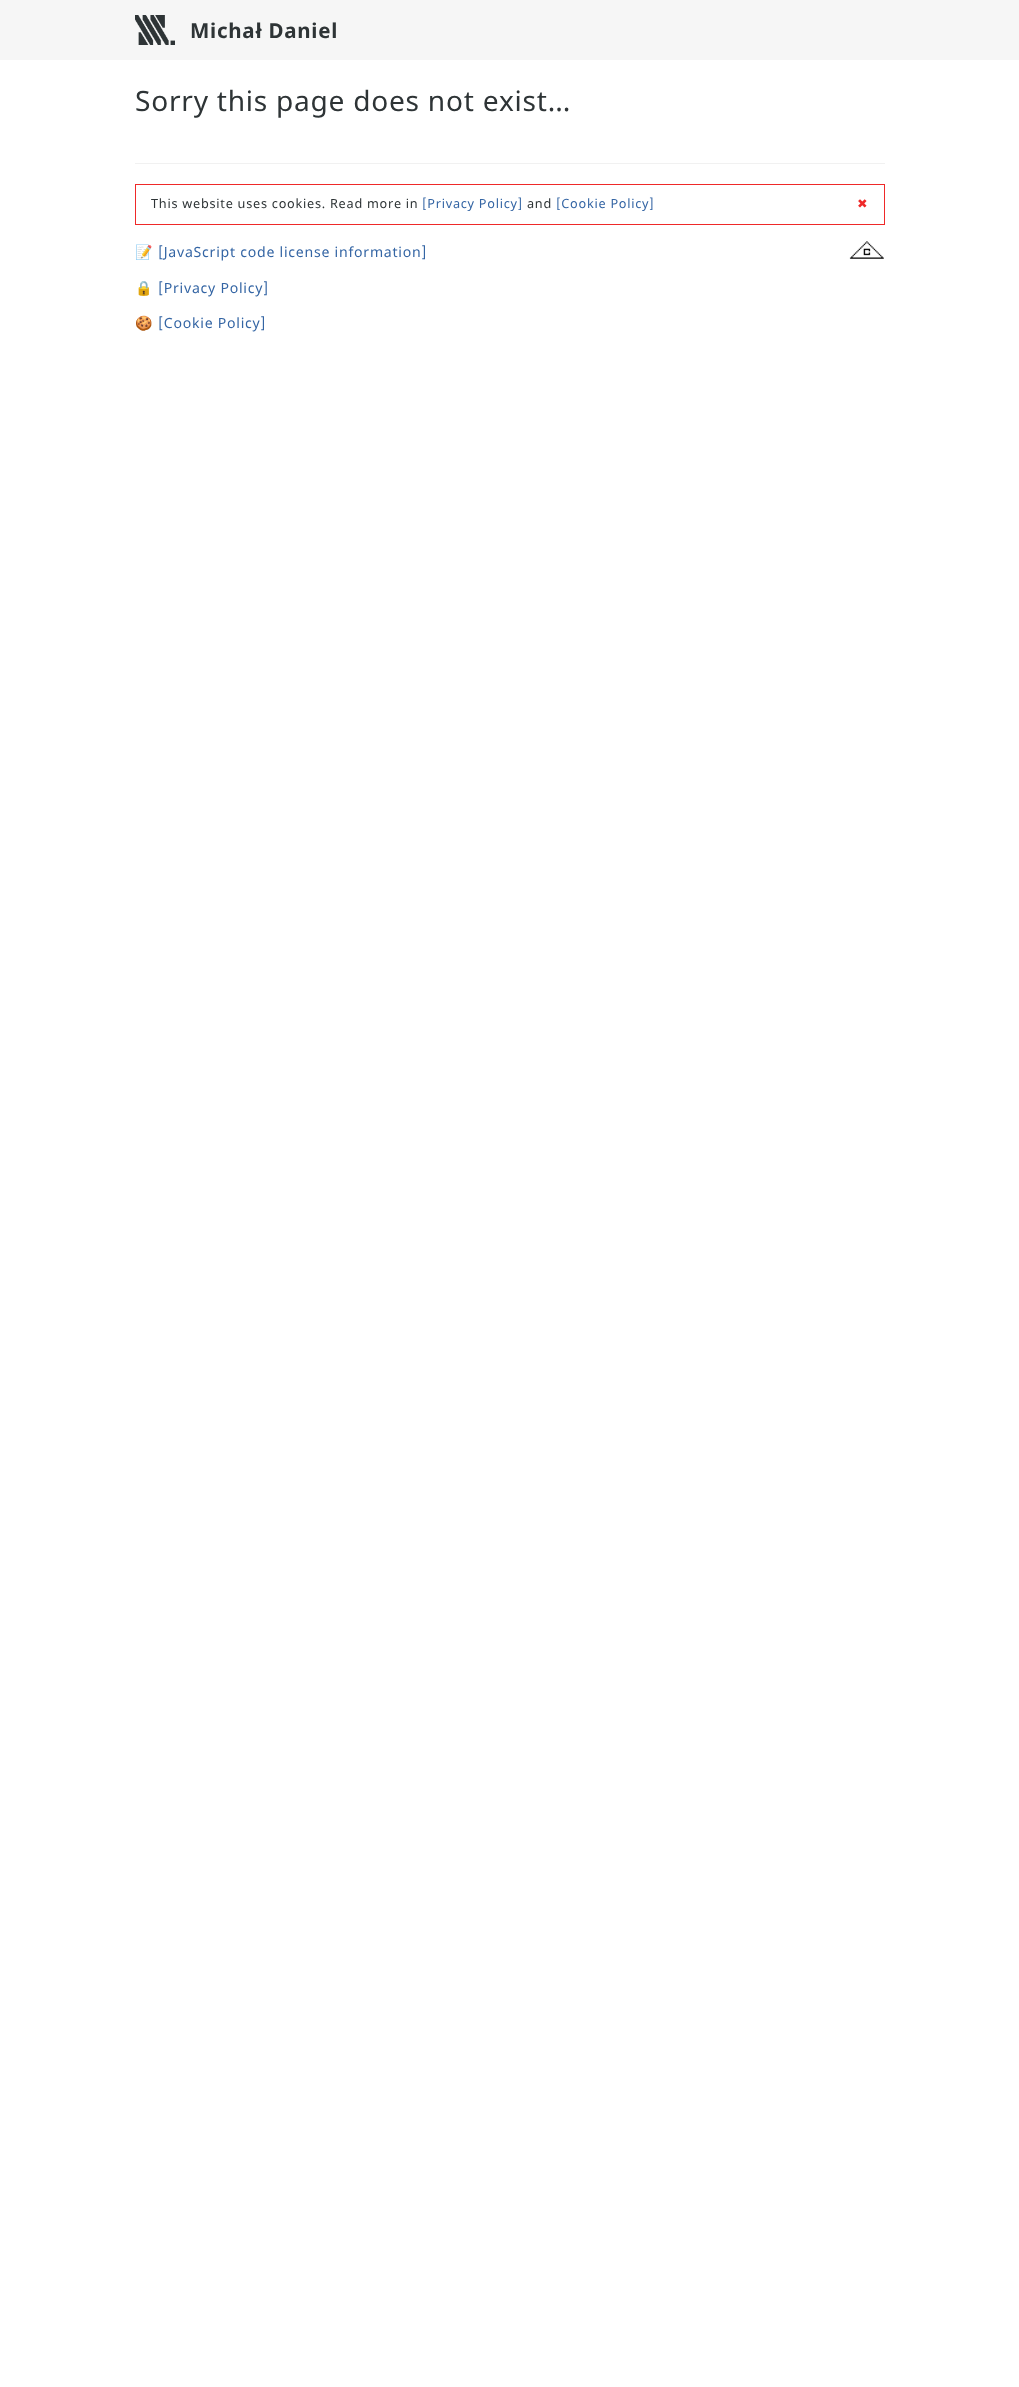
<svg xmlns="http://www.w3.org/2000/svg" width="1019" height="2387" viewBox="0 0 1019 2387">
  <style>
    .t1 { font: bold 20.5px Noto Sans; letter-spacing: 0.75px; fill: #2e3436; }
    .t2 { font: 28.1px Noto Sans; letter-spacing: 0.75px; fill: #2e3436; }
    .t3 { font: 12.7px Noto Sans; letter-spacing: 0.75px; fill: #2e3436; }
    .t4 { font: 12.7px Noto Sans; letter-spacing: 0.75px; fill: #3465a4; }
    .t5 { font: 12.7px DejaVu Sans; letter-spacing: 0.75px; fill: #ef2929; }
    .t6 { font: 14.1px Noto Color Emoji; letter-spacing: 0.75px; fill: #2e3436; }
    .t7 { font: 14.1px Noto Sans; letter-spacing: 0.75px; fill: #3465a4; }
  </style>
  <rect width="100%" height="100%" fill="#fff"/>
  <rect x="0" y="0" width="1019" height="60" fill="#f6f6f6"/>
  <image x="135" y="15" width="40" height="30" href="images/1.png"/>
  <text x="190" y="38" class="t1">Michał Daniel</text>
  <text x="135" y="111" class="t2">Sorry this page does not exist…</text>
  <rect x="135" y="163" width="750" height="1" fill="#f1f1f1"/>
  <rect x="135.5" y="184.5" width="749" height="40" fill="none" stroke="#ef2929"/>
  <text x="151" y="208" class="t3">This website uses cookies. Read more in</text>
  <text x="422" y="208" class="t4">[Privacy Policy]</text>
  <text x="527" y="208" class="t3">and</text>
  <text x="556" y="208" class="t4">[Cookie Policy]</text>
  <text x="857" y="208" class="t5">✖</text>
  <text x="135" y="257" class="t6">📝</text>
  <text x="158" y="257" class="t7">[JavaScript code license information]</text>
  <text x="135" y="293" class="t6">🔒</text>
  <text x="158" y="293" class="t7">[Privacy Policy]</text>
  <text x="135" y="328" class="t6">🍪</text>
  <text x="158" y="328" class="t7">[Cookie Policy]</text>
  <image x="849" y="241" width="35" height="18" href="images/2.png"/>
</svg>
